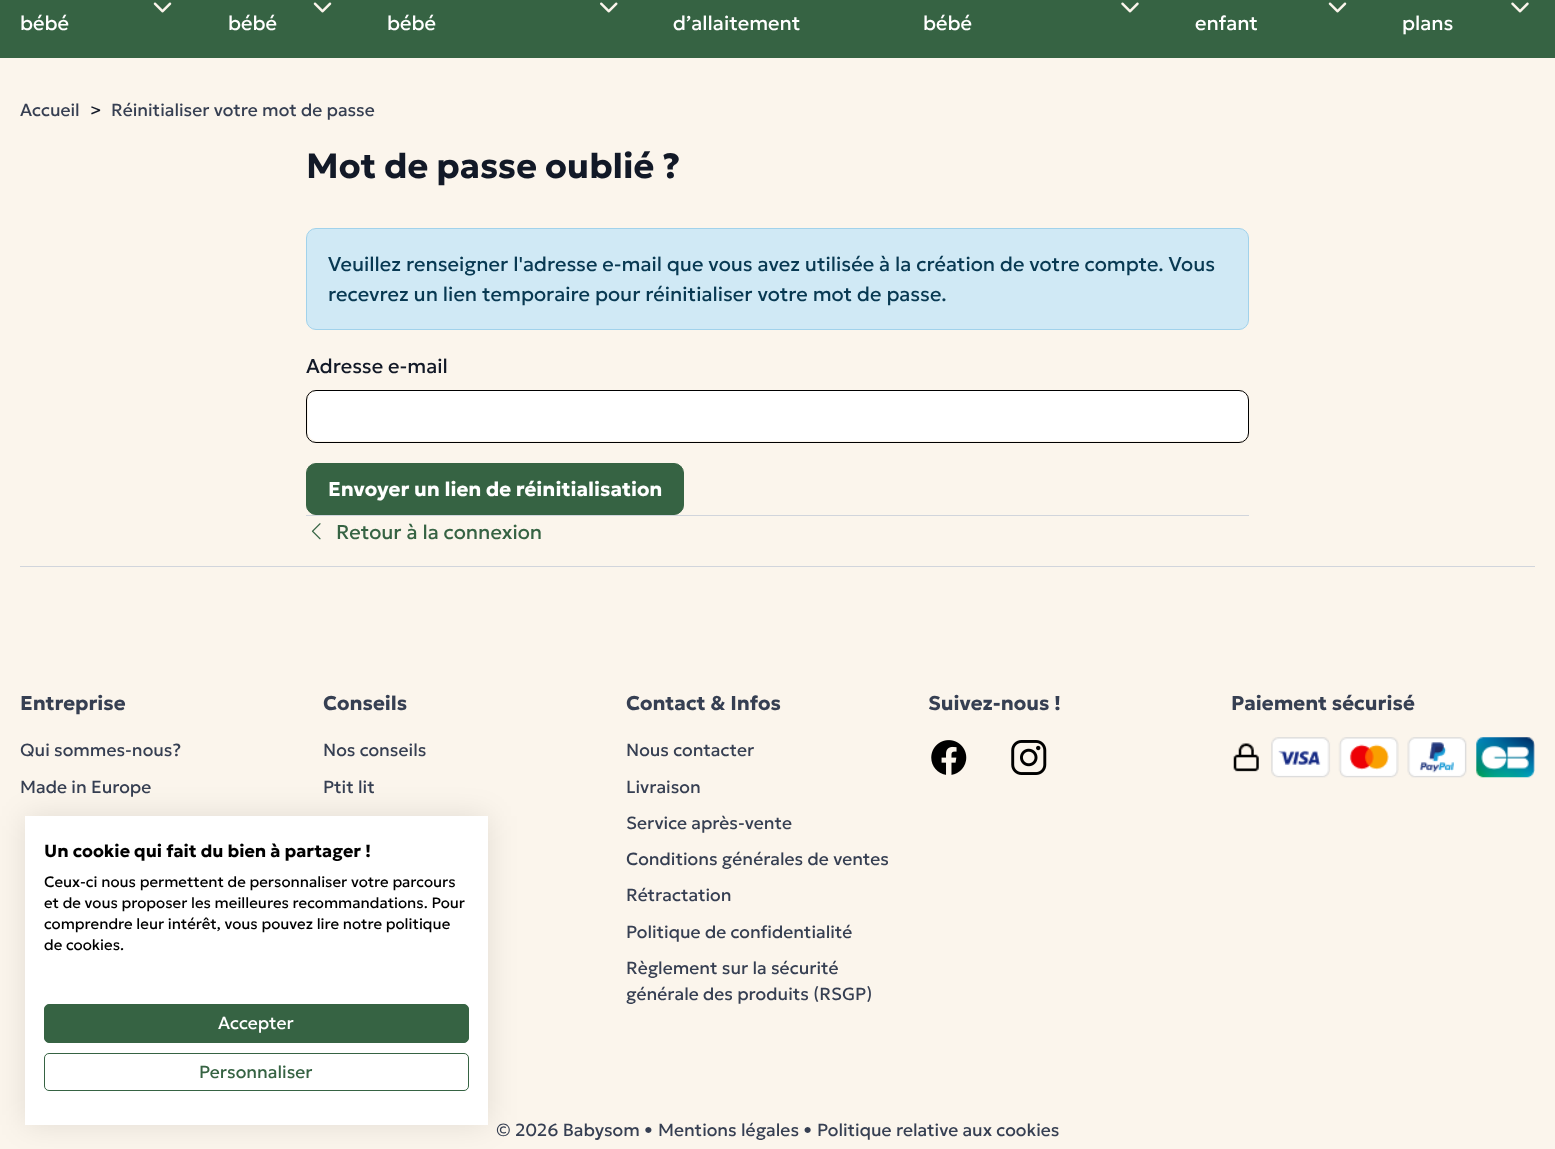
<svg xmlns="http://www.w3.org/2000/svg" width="1555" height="1149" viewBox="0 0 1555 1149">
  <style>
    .t1 { font: 100 20px Geologica; fill: #fff; }
    .t2 { font: 100 17.5px Geologica; fill: #363f52; }
    .t3 { font: 100 17.5px Geologica; fill: #121927; }
    .t4 { font: 100 35px 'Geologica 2'; fill: #121927; }
    .t5 { font: 100 20px Geologica; fill: #083952; }
    .t6 { font: 100 20px Geologica; fill: #121927; }
    .t7 { font: 100 20px 'Geologica 2'; fill: #fff; }
    .t8 { font: 100 20px Geologica; fill: #366343; }
    .t9 { font: 100 20px 'Geologica 2'; fill: #363f52; }
    .t10 { font: 100 17.5px 'Geologica 2'; fill: #000; }
    .t11 { font: 100 15px Geologica; fill: #000; }
    .t12 { font: 100 17.5px Geologica; fill: #fff; }
    .t13 { font: 100 17.5px Geologica; fill: #366343; }
  </style>
  <rect width="100%" height="100%" fill="#fbf5ec"/>
  <rect x="0" y="0" width="1555" height="58" fill="#366343"/>
  <image x="153" y="2" width="19" height="11" href="images/1.png"/>
  <text x="20" y="30" class="t1">bébé</text>
  <image x="313" y="2" width="19" height="11" href="images/1.png"/>
  <text x="228" y="30" class="t1">bébé</text>
  <image x="600" y="2" width="18" height="11" href="images/2.png"/>
  <text x="387" y="30" class="t1">bébé</text>
  <text x="673" y="30" class="t1">d’allaitement</text>
  <image x="1121" y="2" width="18" height="11" href="images/3.png"/>
  <text x="923" y="30" class="t1">bébé</text>
  <image x="1328" y="2" width="19" height="11" href="images/1.png"/>
  <text x="1195" y="30" class="t1">enfant</text>
  <image x="1511" y="2" width="18" height="11" href="images/3.png"/>
  <text x="1402" y="30" class="t1">plans</text>
  <text x="20" y="116" class="t2">Accueil</text>
  <text x="90" y="116" class="t3">&gt;</text>
  <text x="111" y="116" class="t2">Réinitialiser votre mot de passe</text>
  <text x="306" y="178" class="t4">Mot de passe oublié ?</text>
  <rect x="306.5" y="228.5" width="942" height="101" rx="9.5" fill="#d0e9f5" stroke="#a1d2eb"/>
  <text x="328" y="271" class="t5">Veuillez renseigner l'adresse e-mail que vous avez utilisée à la création de votre compte. Vous</text>
  <text x="328" y="301" class="t5">recevrez un lien temporaire pour réinitialiser votre mot de passe.</text>
  <text x="306" y="373" class="t6">Adresse e-mail</text>
  <rect x="308" y="391" width="940" height="50" rx="9" fill="#fff"/>
  <rect x="306.5" y="390.5" width="942" height="52" rx="9.5" fill="none" stroke="#000"/>
  <rect x="306.5" y="463.5" width="377" height="51" rx="9.5" fill="#366343" stroke="#366343"/>
  <text x="328" y="496" class="t7">Envoyer un lien de réinitialisation</text>
  <rect x="306" y="515" width="943" height="1" fill="#d1d5dc"/>
  <image x="311" y="523" width="10" height="17" href="images/4.png"/>
  <text x="336" y="539" class="t8">Retour à la connexion</text>
  <rect x="20" y="566" width="1515" height="1" fill="#d1d5dc"/>
  <text x="20" y="710" class="t9">Entreprise</text>
  <text x="20" y="756" class="t2">Qui sommes-nous?</text>
  <text x="20" y="793" class="t2">Made in Europe</text>
  <text x="323" y="710" class="t9">Conseils</text>
  <text x="323" y="756" class="t2">Nos conseils</text>
  <text x="323" y="793" class="t2">Ptit lit</text>
  <text x="626" y="710" class="t9">Contact &amp; Infos</text>
  <text x="626" y="756" class="t2">Nous contacter</text>
  <text x="626" y="793" class="t2">Livraison</text>
  <text x="626" y="829" class="t2">Service après-vente</text>
  <text x="626" y="865" class="t2">Conditions générales de ventes</text>
  <text x="626" y="901" class="t2">Rétractation</text>
  <text x="626" y="938" class="t2">Politique de confidentialité</text>
  <text x="626" y="974" class="t2">Règlement sur la sécurité</text>
  <text x="626" y="1000" class="t2">générale des produits (RSGP)</text>
  <text x="928" y="710" class="t9">Suivez-nous !</text>
  <image x="931" y="740" width="36" height="35" href="images/5.png"/>
  <image x="1011" y="740" width="36" height="35" href="images/6.png"/>
  <text x="1231" y="710" class="t9">Paiement sécurisé</text>
  <image x="1233" y="737" width="302" height="41" href="images/7.png"/>
  <text x="496" y="1136" class="t2">© 2026 Babysom •</text>
  <text x="658" y="1136" class="t2">Mentions légales •</text>
  <text x="817" y="1136" class="t2">Politique relative aux cookies</text>
  <rect x="25" y="816" width="463" height="309" fill="#0000001a" filter="blur(15px)"/>
  <rect x="25" y="816" width="463" height="309" fill="#fff"/>
  <text x="44" y="857" class="t10">Un cookie qui fait du bien à partager !</text>
  <text x="44" y="887" class="t11">Ceux-ci nous permettent de personnaliser votre parcours</text>
  <text x="44" y="908" class="t11">et de vous proposer les meilleures recommandations. Pour</text>
  <text x="44" y="929" class="t11">comprendre leur intérêt, vous pouvez lire notre politique</text>
  <text x="44" y="950" class="t11">de cookies.</text>
  <rect x="44.5" y="1004.5" width="424" height="38" rx="4.5" fill="#366343" stroke="#366343"/>
  <text x="218" y="1029" class="t12">Accepter</text>
  <rect x="44.5" y="1053.5" width="424" height="37" rx="4.5" fill="none" stroke="#366343"/>
  <text x="199" y="1078" class="t13">Personnaliser</text>
</svg>
